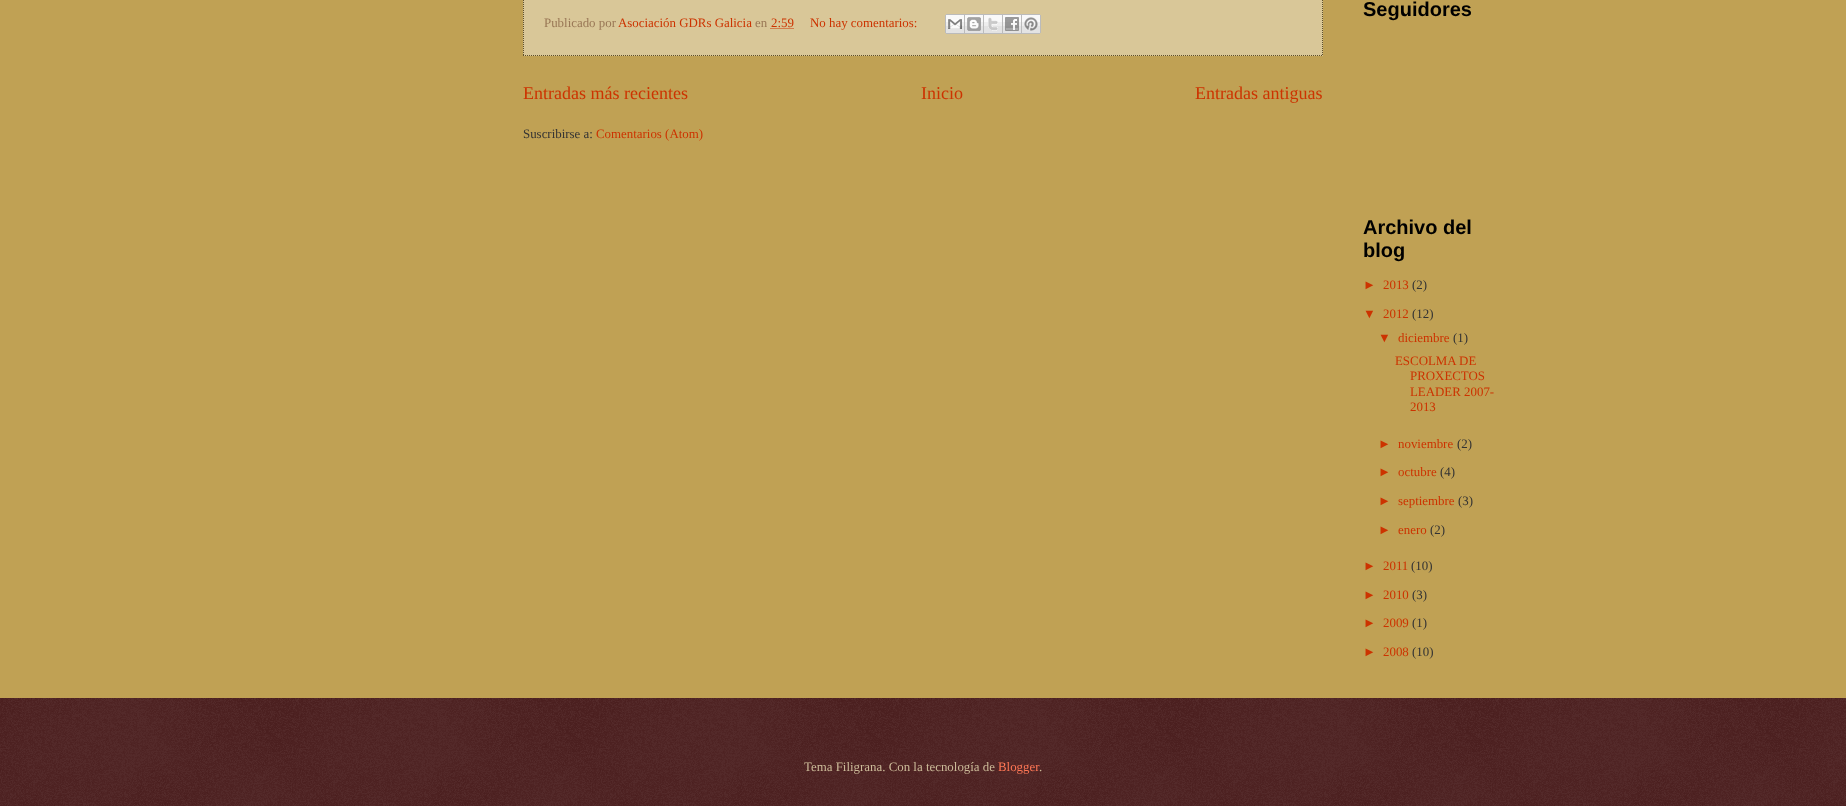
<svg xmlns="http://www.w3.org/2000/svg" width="1846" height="806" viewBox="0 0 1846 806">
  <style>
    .t1 { font: 12.9px Liberation Serif; fill: #975; }
    .t2 { font: 12.9px Liberation Serif; fill: #c30; }
    .t3 { font: 18px Liberation Serif; fill: #c30; }
    .t4 { font: 12.9px Liberation Serif; fill: #333; }
    .t5 { font: bold 20px Liberation Sans; fill: #000; }
    .t6 { font: 12.9px Liberation Sans; fill: #c30; }
    .t7 { font: 12.9px Liberation Serif; fill: #cb9; }
    .t8 { font: 12.9px Liberation Serif; fill: #f75; }
  </style>
  <rect width="100%" height="100%" fill="#c0a154"/>
  <rect x="523" y="0" width="800" height="56" fill="#d9c798"/>
  <path d="M1322.5-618V56" fill="none" stroke="#60502a" stroke-dasharray="1 1"/>
  <path d="M523 55.5H1323" fill="none" stroke="#60502a" stroke-dasharray="1 1"/>
  <path d="M523.5-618V56" fill="none" stroke="#60502a" stroke-dasharray="1 1"/>
  <text x="544" y="27" class="t1">Publicado por</text>
  <text x="618" y="27" class="t2">Asociación GDRs Galicia</text>
  <text x="755" y="27" class="t1">en</text>
  <path d="M770.5 28.5H793.5" fill="none" stroke="#c30" stroke-dasharray="1 1"/>
  <text x="771" y="27" class="t2">2:59</text>
  <text x="810" y="27" class="t2">No hay comentarios:</text>
  <image x="945" y="14" width="20" height="20" href="images/1.png"/>
  <image x="965" y="14" width="19" height="20" href="images/2.png"/>
  <image x="984" y="14" width="19" height="20" href="images/3.png"/>
  <image x="1003" y="14" width="19" height="20" href="images/4.png"/>
  <image x="1022" y="14" width="19" height="20" href="images/5.png"/>
  <text x="523" y="99" class="t3">Entradas más recientes</text>
  <text x="921" y="99" class="t3">Inicio</text>
  <text x="1195" y="99" class="t3">Entradas antiguas</text>
  <text x="523" y="138" class="t4">Suscribirse a:</text>
  <text x="596" y="138" class="t2">Comentarios (Atom)</text>
  <text x="1363" y="16" class="t5">Seguidores</text>
  <text x="1363" y="234" class="t5">Archivo del</text>
  <text x="1363" y="257" class="t5">blog</text>
  <text x="1363" y="289" class="t6">►</text>
  <text x="1383" y="289" class="t2">2013</text>
  <text x="1412" y="289" class="t4">(2)</text>
  <text x="1363" y="318" class="t6">▼</text>
  <text x="1383" y="318" class="t2">2012</text>
  <text x="1412" y="318" class="t4">(12)</text>
  <text x="1378" y="342" class="t6">▼</text>
  <text x="1398" y="342" class="t2">diciembre</text>
  <text x="1453" y="342" class="t4">(1)</text>
  <text x="1395" y="365" class="t2">ESCOLMA DE</text>
  <text x="1410" y="380" class="t2">PROXECTOS</text>
  <text x="1410" y="396" class="t2">LEADER 2007-</text>
  <text x="1410" y="411" class="t2">2013</text>
  <text x="1378" y="448" class="t6">►</text>
  <text x="1398" y="448" class="t2">noviembre</text>
  <text x="1457" y="448" class="t4">(2)</text>
  <text x="1378" y="476" class="t6">►</text>
  <text x="1398" y="476" class="t2">octubre</text>
  <text x="1440" y="476" class="t4">(4)</text>
  <text x="1378" y="505" class="t6">►</text>
  <text x="1398" y="505" class="t2">septiembre</text>
  <text x="1458" y="505" class="t4">(3)</text>
  <text x="1378" y="534" class="t6">►</text>
  <text x="1398" y="534" class="t2">enero</text>
  <text x="1430" y="534" class="t4">(2)</text>
  <text x="1363" y="570" class="t6">►</text>
  <text x="1383" y="570" class="t2">2011</text>
  <text x="1411" y="570" class="t4">(10)</text>
  <text x="1363" y="599" class="t6">►</text>
  <text x="1383" y="599" class="t2">2010</text>
  <text x="1412" y="599" class="t4">(3)</text>
  <text x="1363" y="627" class="t6">►</text>
  <text x="1383" y="627" class="t2">2009</text>
  <text x="1412" y="627" class="t4">(1)</text>
  <text x="1363" y="656" class="t6">►</text>
  <text x="1383" y="656" class="t2">2008</text>
  <text x="1412" y="656" class="t4">(10)</text>
  <rect x="0" y="698" width="1846" height="108" fill="#300"/>
  <image x="0" y="698" width="1846" height="108" href="images/6.png"/>
  <text x="804" y="771" class="t7">Tema Filigrana. Con la tecnología de</text>
  <text x="998" y="771" class="t8">Blogger</text>
  <text x="1039" y="771" class="t7">.</text>
</svg>
